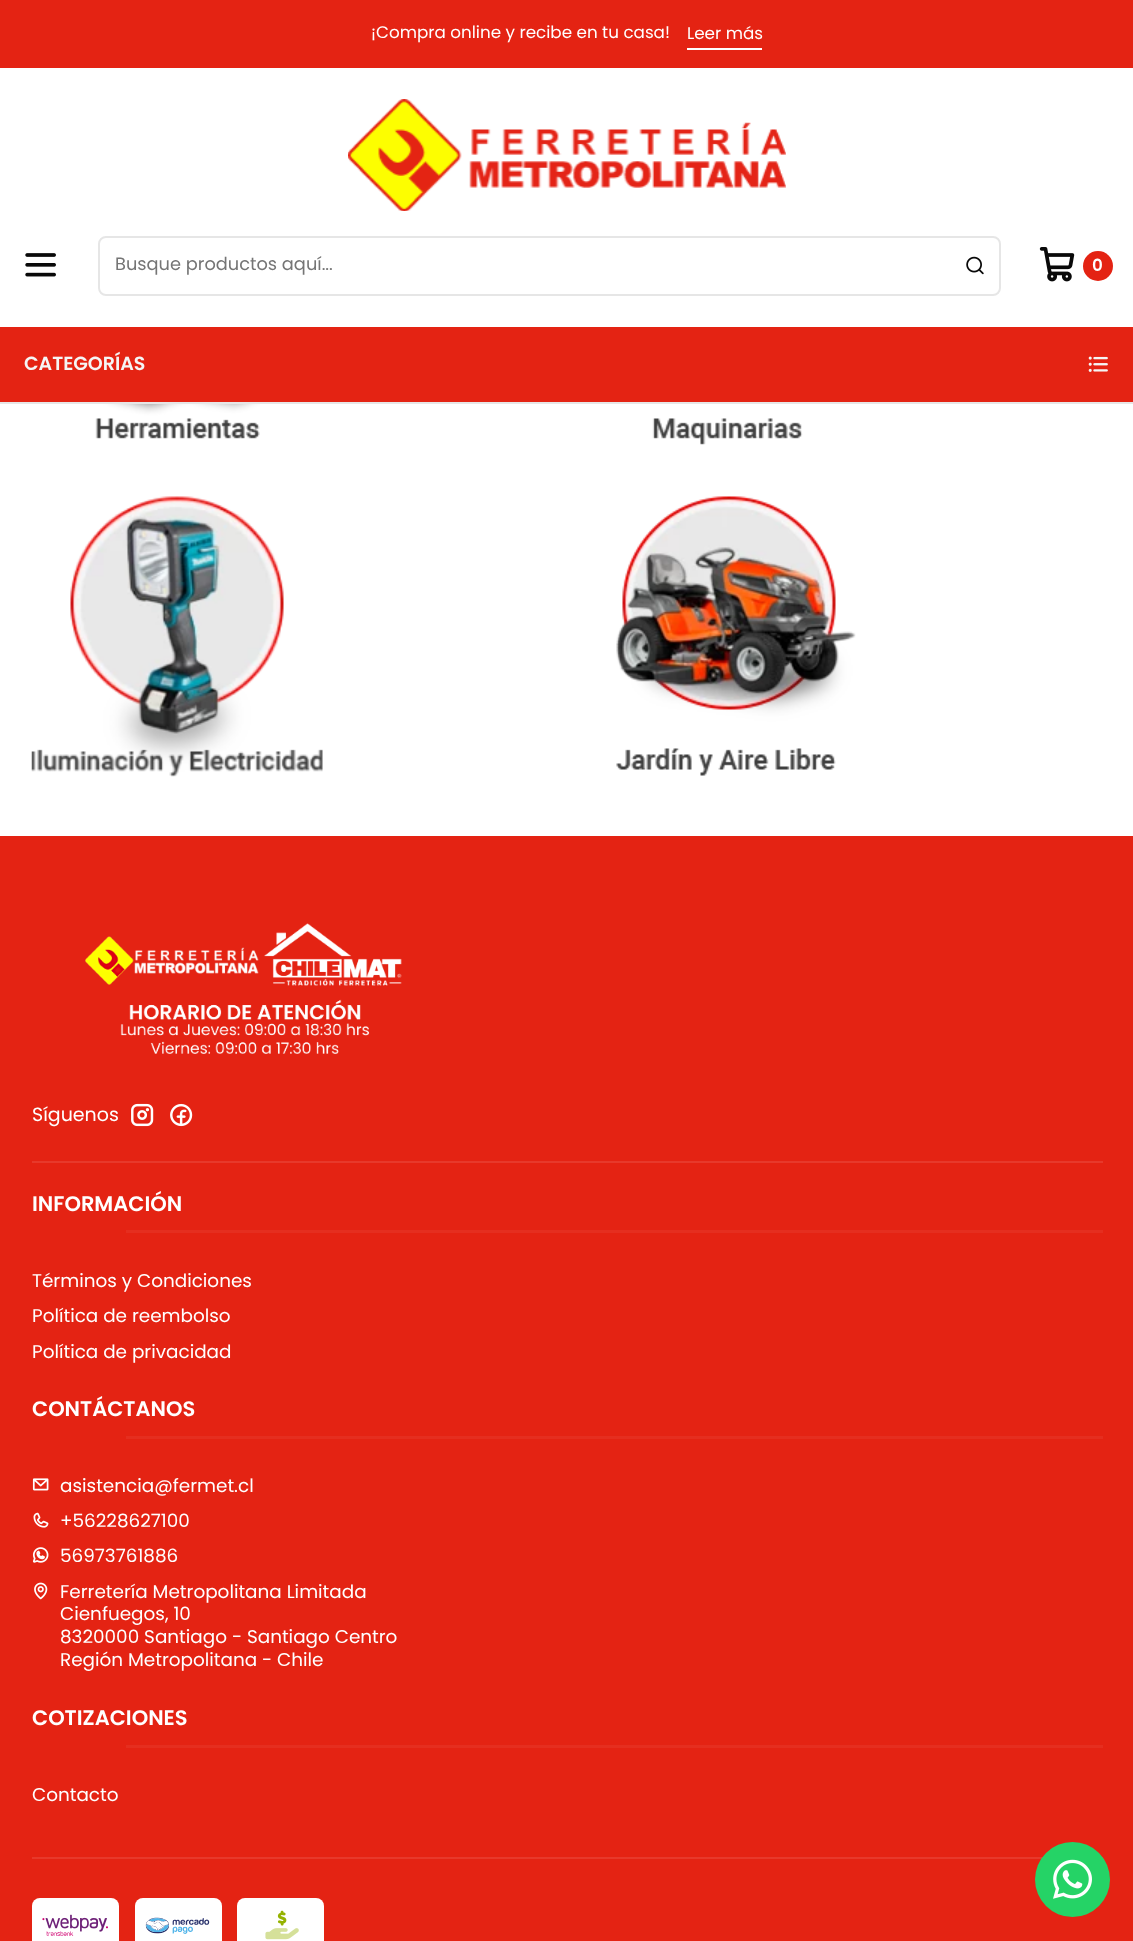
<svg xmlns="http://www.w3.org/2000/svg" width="1133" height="1941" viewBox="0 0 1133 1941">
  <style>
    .t1 { font: 16.75px Poppins; fill: #fff; }
    .t2 { font: 17.8px Poppins; fill: #757575; }
    .t3 { font: 600 16.75px Poppins; fill: #fff; }
    .t4 { font: 600 19px Poppins; fill: #f5f5f5; }
    .t5 { font: 19px Poppins; fill: #fff; }
    .t6 { font: 600 21px Poppins; fill: #fff; }
    .t7 { font: 18.4px Poppins; fill: #fff; }
  </style>
  <rect width="100%" height="100%" fill="#fff"/>
  <rect x="0" y="0" width="1133" height="68" fill="#e42313"/>
  <text x="371" y="38" class="t1">¡Compra online y recibe en tu casa!</text>
  <rect x="687" y="48" width="75" height="2" fill="#fff"/>
  <text x="687" y="39" class="t1">Leer más</text>
  <rect x="0" y="402" width="1133" height="2" fill="#e6e6e6"/>
  <image x="348" y="99" width="438" height="112" href="images/1.png"/>
  <image x="25" y="253" width="31" height="24" href="images/2.png"/>
  <rect x="99" y="237" width="901" height="58" rx="7" fill="none" stroke="#e6e6e6" stroke-width="2"/>
  <text x="115" y="270" class="t2">Busque productos aquí...</text>
  <image x="966" y="256" width="18" height="19" href="images/3.png"/>
  <image x="1039" y="247" width="36" height="35" href="images/4.png"/>
  <circle cx="1098" cy="266" r="15" fill="#e42313"/>
  <text x="1092" y="271" class="t3">0</text>
  <rect x="0" y="327" width="1133" height="75" fill="#e42313"/>
  <text x="24" y="370" class="t4">CATEGORÍAS</text>
  <image x="1088" y="356" width="20" height="16" href="images/5.png"/>
  <image x="95" y="404" width="165" height="35" href="images/6.png"/>
  <image x="652" y="418" width="151" height="27" href="images/7.png"/>
  <image x="31" y="496" width="292" height="281" href="images/8.png"/>
  <image x="616" y="496" width="240" height="280" href="images/9.png"/>
  <rect x="0" y="836" width="1133" height="1105" fill="#e42313"/>
  <image x="84" y="923" width="318" height="131" href="images/10.png"/>
  <text x="32" y="1121" class="t5">Síguenos</text>
  <image x="131" y="1103" width="23" height="24" href="images/11.png"/>
  <image x="170" y="1103" width="23" height="24" href="images/12.png"/>
  <rect x="32" y="1161" width="1071" height="2" fill="#e7392b"/>
  <rect x="126" y="1230" width="977" height="3" fill="#e52e1f"/>
  <text x="32" y="1211" class="t6">INFORMACIÓN</text>
  <text x="32" y="1287" class="t7">Términos y Condiciones</text>
  <text x="32" y="1322" class="t7">Política de reembolso</text>
  <text x="32" y="1358" class="t7">Política de privacidad</text>
  <rect x="126" y="1436" width="977" height="3" fill="#e52e1f"/>
  <text x="32" y="1416" class="t6">CONTÁCTANOS</text>
  <image x="32" y="1478" width="17" height="13" href="images/13.png"/>
  <text x="60" y="1492" class="t7">asistencia@fermet.cl</text>
  <image x="33" y="1512" width="16" height="16" href="images/14.png"/>
  <text x="60" y="1527" class="t7">+56228627100</text>
  <image x="32" y="1547" width="17" height="16" href="images/15.png"/>
  <text x="60" y="1562" class="t7">56973761886</text>
  <image x="34" y="1582" width="14" height="18" href="images/16.png"/>
  <text x="60" y="1598" class="t7">Ferretería Metropolitana Limitada</text>
  <text x="60" y="1620" class="t7">Cienfuegos, 10</text>
  <text x="60" y="1643" class="t7">8320000 Santiago - Santiago Centro</text>
  <text x="60" y="1666" class="t7">Región Metropolitana - Chile</text>
  <rect x="126" y="1745" width="977" height="3" fill="#e52e1f"/>
  <text x="32" y="1725" class="t6">COTIZACIONES</text>
  <text x="32" y="1801" class="t7">Contacto</text>
  <rect x="32" y="1857" width="1071" height="2" fill="#e7392b"/>
  <rect x="32" y="1898" width="87" height="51" rx="8" fill="#fff"/>
  <rect x="33" y="1899" width="85" height="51" rx="7" fill="none" stroke="#ffffff1a" stroke-width="2"/>
  <image x="42" y="1914" width="66" height="23" href="images/17.png"/>
  <rect x="135" y="1898" width="87" height="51" rx="8" fill="#fff"/>
  <rect x="136" y="1899" width="85" height="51" rx="7" fill="none" stroke="#ffffff1a" stroke-width="2"/>
  <image x="145" y="1917" width="65" height="17" href="images/18.png"/>
  <rect x="237" y="1898" width="87" height="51" rx="8" fill="#fff"/>
  <rect x="238" y="1899" width="85" height="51" rx="7" fill="none" stroke="#ffffff1a" stroke-width="2"/>
  <image x="265" y="1910" width="34" height="30" href="images/19.png"/>
  <circle cx="1072.5" cy="1879.5" r="37.5" fill="#25d366"/>
  <image x="1053" y="1859" width="39" height="40" href="images/20.png"/>
</svg>
